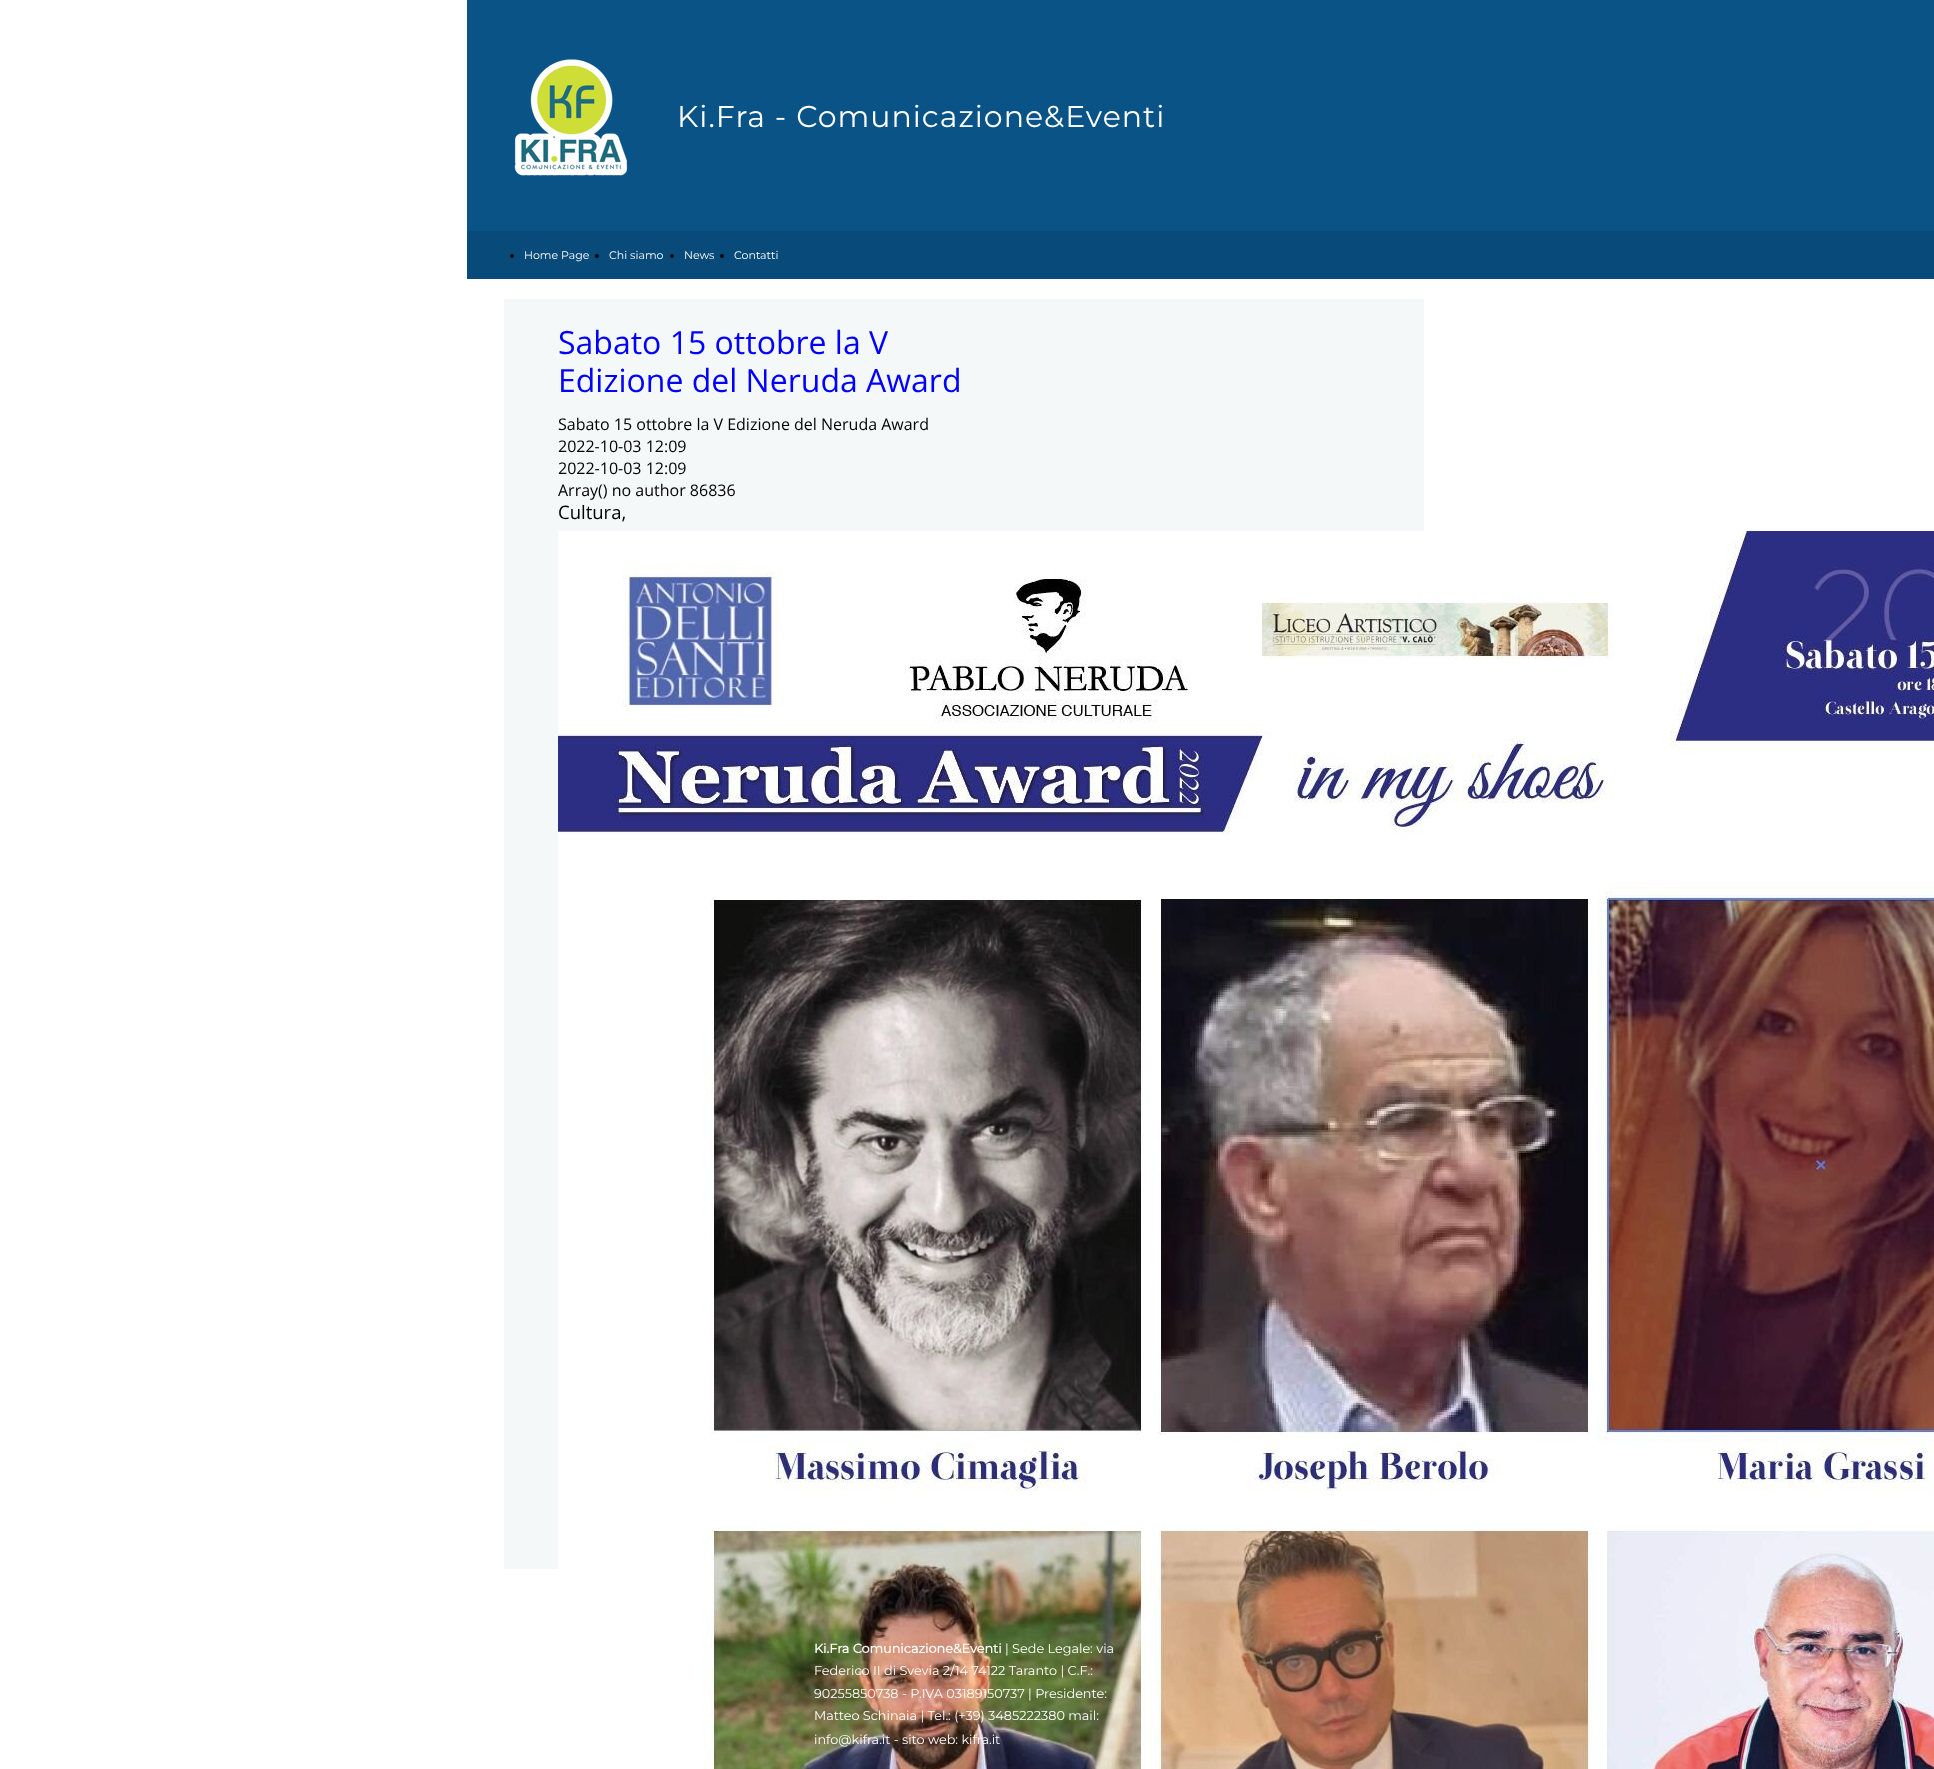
<svg xmlns="http://www.w3.org/2000/svg" width="1934" height="1769" viewBox="0 0 1934 1769">
  <style>
    .t1 { font: 30px Montserrat; letter-spacing: 1px; fill: #fff; }
    .t2 { font: 11px Montserrat; fill: #fff; }
    .t3 { font: 32px Open Sans; fill: #00f; }
    .t4 { font: 16px Open Sans; fill: #000; }
    .t5 { font: 18.5px Open Sans; fill: #000; }
    .t6 { font: bold 12.8px Montserrat; fill: #fff; }
    .t7 { font: 12.8px Montserrat; fill: #fff; }
  </style>
  <rect width="100%" height="100%" fill="#fff"/>
  <rect x="467" y="0" width="1467" height="231" fill="#095387"/>
  <image x="514" y="59" width="114" height="117" href="images/1.png"/>
  <text x="677" y="127" class="t1">Ki.Fra - Comunicazione&amp;Eventi</text>
  <rect x="467" y="231" width="1467" height="48" fill="#084a79"/>
  <circle cx="512" cy="256" r="2" fill="#000"/>
  <text x="524" y="259" class="t2">Home Page</text>
  <circle cx="597" cy="256" r="2" fill="#000"/>
  <text x="609" y="259" class="t2">Chi siamo</text>
  <circle cx="672" cy="256" r="2" fill="#000"/>
  <text x="684" y="259" class="t2">News</text>
  <circle cx="722" cy="256" r="2" fill="#000"/>
  <text x="734" y="259" class="t2">Contatti</text>
  <rect x="504" y="299" width="920" height="1270" fill="#f4f8f9"/>
  <text x="558" y="354" class="t3">Sabato 15 ottobre la V</text>
  <text x="558" y="392" class="t3">Edizione del Neruda Award</text>
  <text x="558" y="430" class="t4">Sabato 15 ottobre la V Edizione del Neruda Award</text>
  <text x="558" y="452" class="t4">2022-10-03 12:09</text>
  <text x="558" y="474" class="t4">2022-10-03 12:09</text>
  <text x="558" y="496" class="t4">Array() no author 86836</text>
  <text x="558" y="519" class="t5">Cultura,</text>
  <image x="558" y="531" width="1376" height="1238" href="images/2.png"/>
  <text x="814" y="1653" class="t6">Ki.Fra Comunicazione&amp;Eventi</text>
  <text x="1005" y="1653" class="t7">| Sede Legale: via</text>
  <text x="814" y="1675" class="t7">Federico II di Svevia 2/14 74122 Taranto | C.F.:</text>
  <text x="814" y="1698" class="t7">90255850738 - P.IVA 03189150737 | Presidente:</text>
  <text x="814" y="1720" class="t7">Matteo Schinaia | Tel.: (+39) 3485222380 mail:</text>
  <text x="814" y="1744" class="t7">info@kifra.it - sito web: kifra.it</text>
</svg>
